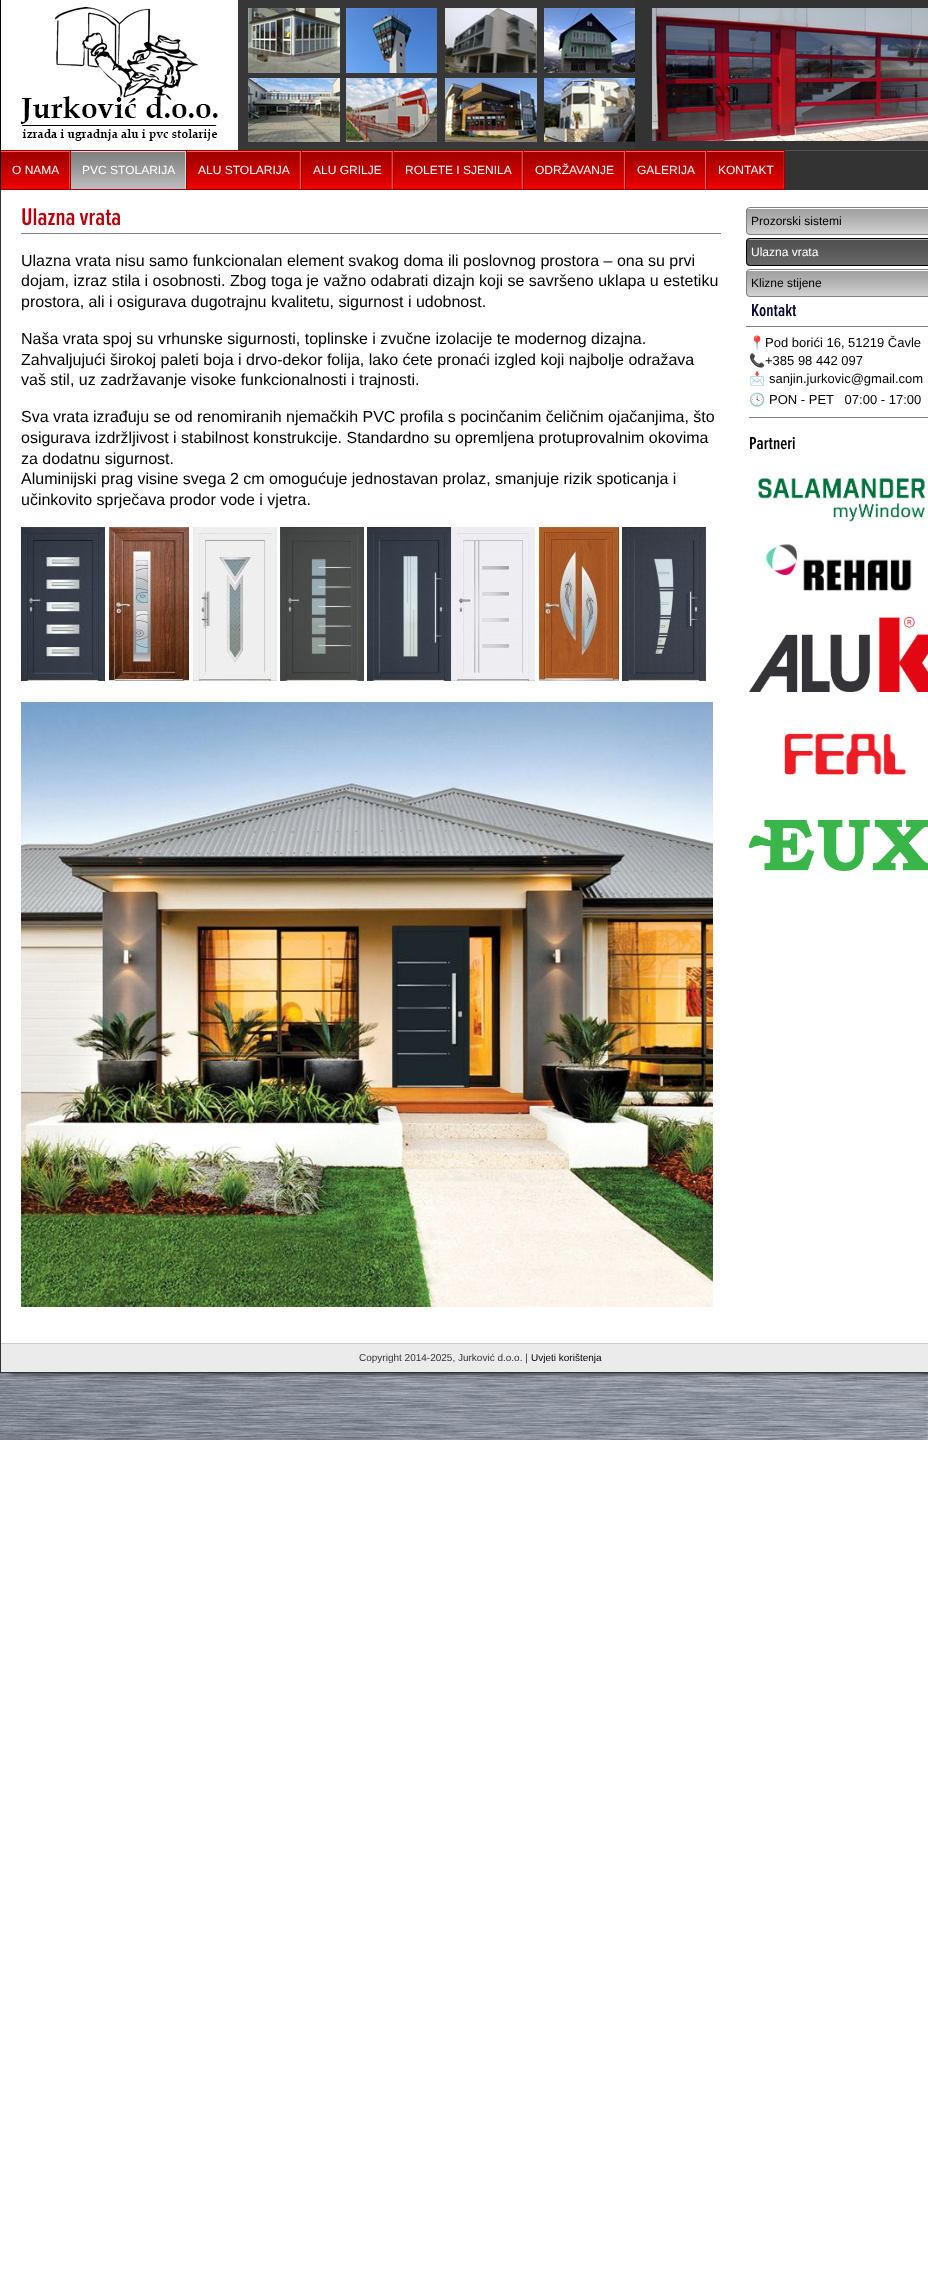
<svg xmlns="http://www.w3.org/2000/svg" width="928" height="2275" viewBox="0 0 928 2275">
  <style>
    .t1 { font: 12px Liberation Sans; fill: #fff; }
    .t2 { font: 600 25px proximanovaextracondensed; fill: #bb000b; }
    .t3 { font: 16px Liberation Sans; fill: #000; }
    .t4 { font: 12px Liberation Sans; fill: #000; }
    .t5 { font: 600 18px proximanovaextracondensed; fill: #003; }
    .t6 { font: 13px Noto Color Emoji; fill: #000; }
    .t7 { font: 13px Liberation Sans; fill: #000; }
    .t8 { font: 600 18px proximanovaextracondensed; fill: #000; }
    .t9 { font: 10px Liberation Sans; fill: #333; }
    .t10 { font: 10px Liberation Sans; fill: #000; }
  </style>
  <defs>
    <clipPath id="clip1"><rect x="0" y="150" width="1" height="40"/></clipPath>
    <clipPath id="clip2"><rect x="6" y="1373" width="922" height="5"/></clipPath>
  </defs>
  <rect width="100%" height="100%" fill="#fff"/>
  <rect x="785" y="151" width="143" height="39" fill="#333"/>
  <rect x="0" y="150" width="1" height="40" fill="#000"/>
  <g clip-path="url(#clip1)">
    <rect x="1" y="151" width="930" height="40" fill="#02020240" filter="blur(1px)"/>
  </g>
  <rect x="635" y="0" width="293" height="150" fill="#333"/>
  <image x="1" y="0" width="634" height="150" href="images/1.png"/>
  <rect x="0" y="0" width="1" height="150" fill="#000"/>
  <image x="652" y="8" width="276" height="133" href="images/2.png"/>
  <rect x="785" y="150" width="143" height="1" fill="#525252"/>
  <rect x="1" y="151" width="69" height="38" fill="#f00"/>
  <image x="1" y="151" width="69" height="38" href="images/3.png"/>
  <rect x="1" y="150" width="784" height="1" fill="#900"/>
  <rect x="70" y="150" width="1" height="40" fill="#900"/>
  <rect x="1" y="189" width="70" height="1" fill="#900"/>
  <text x="12" y="174" class="t1">O NAMA</text>
  <rect x="71" y="151" width="115" height="38" fill="#ccc"/>
  <image x="71" y="151" width="115" height="38" href="images/4.png"/>
  <rect x="186" y="150" width="1" height="40" fill="#900"/>
  <rect x="71" y="189" width="116" height="1" fill="#900"/>
  <text x="82" y="174" class="t1">PVC STOLARIJA</text>
  <rect x="187" y="151" width="114" height="38" fill="#f00"/>
  <image x="187" y="151" width="114" height="38" href="images/5.png"/>
  <rect x="301" y="150" width="1" height="40" fill="#900"/>
  <rect x="187" y="189" width="115" height="1" fill="#900"/>
  <text x="198" y="174" class="t1">ALU STOLARIJA</text>
  <rect x="302" y="151" width="91" height="38" fill="#f00"/>
  <image x="302" y="151" width="91" height="38" href="images/6.png"/>
  <rect x="393" y="150" width="1" height="40" fill="#900"/>
  <rect x="302" y="189" width="92" height="1" fill="#900"/>
  <text x="313" y="174" class="t1">ALU GRILJE</text>
  <rect x="394" y="151" width="129" height="38" fill="#f00"/>
  <image x="394" y="151" width="129" height="38" href="images/7.png"/>
  <rect x="523" y="150" width="1" height="40" fill="#900"/>
  <rect x="394" y="189" width="130" height="1" fill="#900"/>
  <text x="405" y="174" class="t1">ROLETE I SJENILA</text>
  <rect x="524" y="151" width="101" height="38" fill="#f00"/>
  <image x="524" y="151" width="101" height="38" href="images/8.png"/>
  <rect x="625" y="150" width="1" height="40" fill="#900"/>
  <rect x="524" y="189" width="102" height="1" fill="#900"/>
  <text x="535" y="174" class="t1">ODRŽAVANJE</text>
  <rect x="626" y="151" width="80" height="38" fill="#f00"/>
  <image x="626" y="151" width="80" height="38" href="images/9.png"/>
  <rect x="706" y="150" width="1" height="40" fill="#900"/>
  <rect x="626" y="189" width="81" height="1" fill="#900"/>
  <text x="637" y="174" class="t1">GALERIJA</text>
  <rect x="707" y="151" width="77" height="38" fill="#f00"/>
  <image x="707" y="151" width="77" height="38" href="images/10.png"/>
  <rect x="784" y="150" width="1" height="40" fill="#900"/>
  <rect x="707" y="189" width="78" height="1" fill="#900"/>
  <text x="718" y="174" class="t1">KONTAKT</text>
  <rect x="1" y="190" width="927" height="3" fill="#fff"/>
  <image x="0" y="1373" width="928" height="67" href="images/27.png"/>
  <g clip-path="url(#clip2)">
    <rect x="10" y="200" width="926" height="1173" fill="#000" filter="blur(2.5px)"/>
  </g>
  <rect x="0" y="1372" width="928" height="1" fill="#333"/>
  <rect x="0" y="190" width="1" height="1183" fill="#333"/>
  <rect x="21" y="233" width="700" height="1" fill="#808080"/>
  <text x="21" y="225" class="t2">Ulazna vrata</text>
  <text x="21" y="266" class="t3">Ulazna vrata nisu samo funkcionalan element svakog doma ili poslovnog prostora – ona su prvi</text>
  <text x="21" y="286" class="t3">dojam, izraz stila i osobnosti. Zbog toga je važno odabrati dizajn koji se savršeno uklapa u estetiku</text>
  <text x="21" y="307" class="t3">prostora, ali i osigurava dugotrajnu kvalitetu, sigurnost i udobnost.</text>
  <text x="21" y="344" class="t3">Naša vrata spoj su vrhunske sigurnosti, toplinske i zvučne izolacije te modernog dizajna.</text>
  <text x="21" y="365" class="t3">Zahvaljujući širokoj paleti boja i drvo-dekor folija, lako ćete pronaći izgled koji najbolje odražava</text>
  <text x="21" y="385" class="t3">vaš stil, uz zadržavanje visoke funkcionalnosti i trajnosti.</text>
  <text x="21" y="422" class="t3">Sva vrata izrađuju se od renomiranih njemačkih PVC profila s pocinčanim čeličnim ojačanjima, što</text>
  <text x="21" y="443" class="t3">osigurava izdržljivost i stabilnost konstrukcije. Standardno su opremljena protuprovalnim okovima</text>
  <text x="21" y="464" class="t3">za dodatnu sigurnost.</text>
  <text x="21" y="484" class="t3">Aluminijski prag visine svega 2 cm omogućuje jednostavan prolaz, smanjuje rizik spoticanja i</text>
  <text x="21" y="505" class="t3">učinkovito sprječava prodor vode i vjetra.</text>
  <image x="21" y="527" width="84" height="154" href="images/11.png"/>
  <image x="109" y="527" width="80" height="154" href="images/12.png"/>
  <image x="193" y="527" width="84" height="154" href="images/13.png"/>
  <image x="280" y="527" width="84" height="154" href="images/14.png"/>
  <image x="367" y="527" width="84" height="154" href="images/15.png"/>
  <image x="451" y="527" width="84" height="154" href="images/16.png"/>
  <image x="539" y="527" width="80" height="154" href="images/17.png"/>
  <image x="622" y="527" width="84" height="154" href="images/18.png"/>
  <image x="21" y="702" width="692" height="605" href="images/19.png"/>
  <image x="746" y="209" width="182" height="26" href="images/20.png"/>
  <rect x="746.5" y="207.5" width="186" height="27" rx="3.5" fill="none" stroke="#808080"/>
  <text x="751" y="225" class="t4">Prozorski sistemi</text>
  <rect x="746" y="238" width="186" height="28" rx="4" fill="#808080"/>
  <image x="746" y="239" width="182" height="27" href="images/21.png"/>
  <rect x="746.5" y="238.5" width="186" height="27" rx="3.5" fill="none" stroke="#000"/>
  <text x="751" y="256" class="t1">Ulazna vrata</text>
  <image x="746" y="271" width="182" height="26" href="images/20.png"/>
  <rect x="746.5" y="269.5" width="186" height="27" rx="3.5" fill="none" stroke="#808080"/>
  <text x="751" y="287" class="t4">Klizne stijene</text>
  <text x="751" y="316" class="t5">Kontakt</text>
  <rect x="746" y="326" width="182" height="1" fill="#808080"/>
  <text x="749" y="347" class="t6">📍</text>
  <text x="765" y="347" class="t7">Pod borići 16, 51219 Čavle</text>
  <text x="749" y="365" class="t6">📞</text>
  <text x="765" y="365" class="t7">+385 98 442 097</text>
  <text x="749" y="383" class="t6">📩</text>
  <text x="769" y="383" class="t7">sanjin.jurkovic@gmail.com</text>
  <text x="749" y="404" class="t6">🕓</text>
  <text x="769" y="404" class="t7" xml:space="preserve">PON - PET   07:00 - 17:00</text>
  <rect x="749" y="417" width="179" height="1" fill="#808080"/>
  <text x="749" y="449" class="t8">Partneri</text>
  <image x="758" y="478" width="168" height="44" href="images/22.png"/>
  <image x="764" y="544" width="148" height="47" href="images/23.png"/>
  <image x="749" y="617" width="179" height="75" href="images/24.png"/>
  <image x="784" y="724" width="122" height="51" href="images/25.png"/>
  <image x="749" y="820" width="179" height="51" href="images/26.png"/>
  <rect x="1" y="1344" width="927" height="28" fill="#ebebeb"/>
  <rect x="1" y="1343" width="927" height="1" fill="#ccc"/>
  <text x="359" y="1361" class="t9">Copyright 2014-2025, Jurković d.o.o. |</text>
  <text x="531" y="1361" class="t10">Uvjeti korištenja</text>
</svg>
